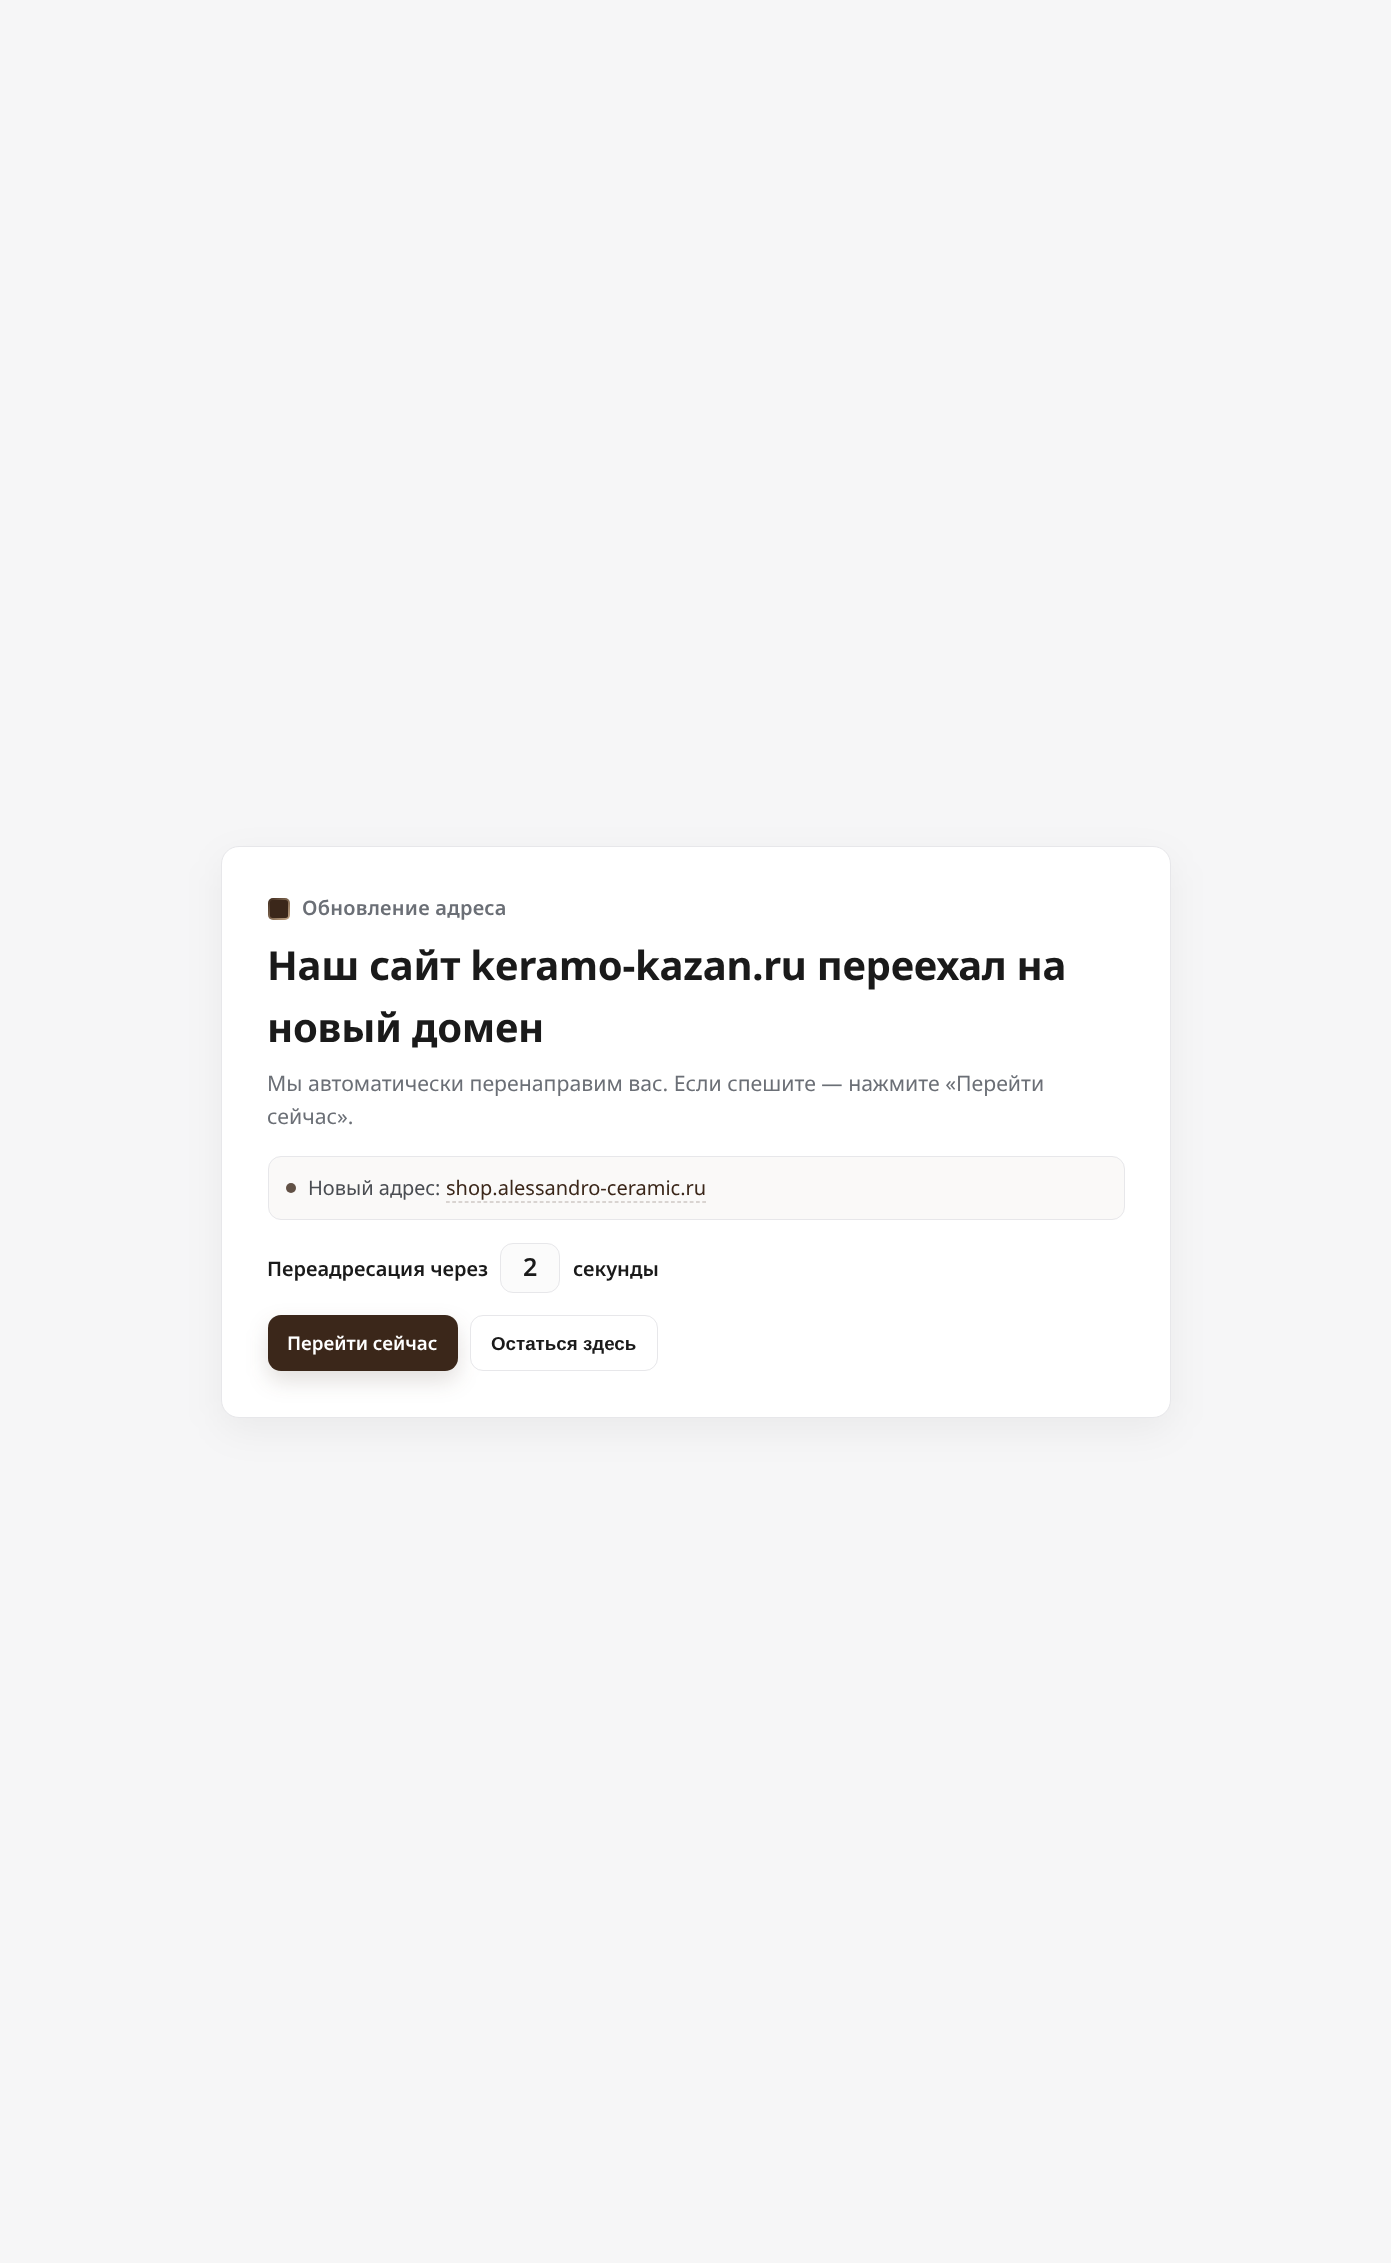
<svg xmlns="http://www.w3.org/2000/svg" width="1391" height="2263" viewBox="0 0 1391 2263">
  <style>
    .t1 { font: 600 20px Noto Sans; letter-spacing: 0.25px; fill: #6b6f76; }
    .t2 { font: bold 40px Noto Sans; letter-spacing: -0.25px; fill: #1a1a1a; }
    .t3 { font: 21.25px Noto Sans; fill: #6b6f76; }
    .t4 { font: 20px Noto Sans; fill: #4a4d52; }
    .t5 { font: 20px Noto Sans; fill: #3b271a; }
    .t6 { font: 600 20px Noto Sans; fill: #1a1a1a; }
    .t7 { font: 600 25px Noto Sans; fill: #1a1a1a; }
    .t8 { font: 600 18.75px Noto Sans; fill: #fff; }
    .t9 { font: bold 18.75px Liberation Sans; fill: #1a1a1a; }
  </style>
  <defs>
    <linearGradient id="g1" gradientUnits="userSpaceOnUse" x1="268" y1="898" x2="290" y2="920"><stop offset="0" stop-color="#3b271a"/><stop offset="1" stop-color="#c6a989"/></linearGradient>
  </defs>
  <rect width="100%" height="100%" fill="#f6f6f7"/>
  <rect x="221" y="859" width="950" height="571" rx="18" fill="#0000000d" filter="blur(19px)"/>
  <rect x="221.5" y="846.5" width="949" height="571" rx="17.5" fill="#fff" stroke="#e7e7ea"/>
  <rect x="268" y="898" width="22" height="22" rx="5" fill="url(#g1)"/>
  <rect x="270" y="900" width="18" height="18" rx="2.5" fill="#3b271a"/>
  <text x="302" y="915" class="t1">Обновление адреса</text>
  <text x="267" y="980" class="t2">Наш сайт keramo-kazan.ru переехал на</text>
  <text x="267" y="1042" class="t2">новый домен</text>
  <text x="267" y="1091" class="t3">Мы автоматически перенаправим вас. Если спешите — нажмите «Перейти</text>
  <text x="267" y="1124" class="t3">сейчас».</text>
  <rect x="268.5" y="1156.5" width="856" height="63" rx="12.5" fill="#faf9f8" stroke="#e7e7ea"/>
  <circle cx="291" cy="1188" r="5" fill="#615146"/>
  <text x="308" y="1195" class="t4">Новый адрес:</text>
  <text x="446" y="1195" class="t5">shop.alessandro-ceramic.ru</text>
  <path d="M446 1202H706" fill="none" stroke="#b7afaa" stroke-width="1.2" stroke-dasharray="3.75 2.5"/>
  <text x="267" y="1276" class="t6">Переадресация через</text>
  <rect x="500.5" y="1243.5" width="59" height="49" rx="12.5" fill="#fbfbfb" stroke="#e7e7ea"/>
  <text x="523" y="1276" class="t7">2</text>
  <text x="573" y="1276" class="t6">секунды</text>
  <rect x="268" y="1325" width="190" height="56" rx="13" fill="#3b271a26" filter="blur(11px)"/>
  <rect x="268" y="1315" width="190" height="56" rx="13" fill="#3b271a"/>
  <text x="287" y="1350" class="t8">Перейти сейчас</text>
  <rect x="470.5" y="1315.5" width="187" height="55" rx="12.5" fill="#fff" stroke="#e7e7ea"/>
  <text x="491" y="1350" class="t9">Остаться здесь</text>
</svg>
